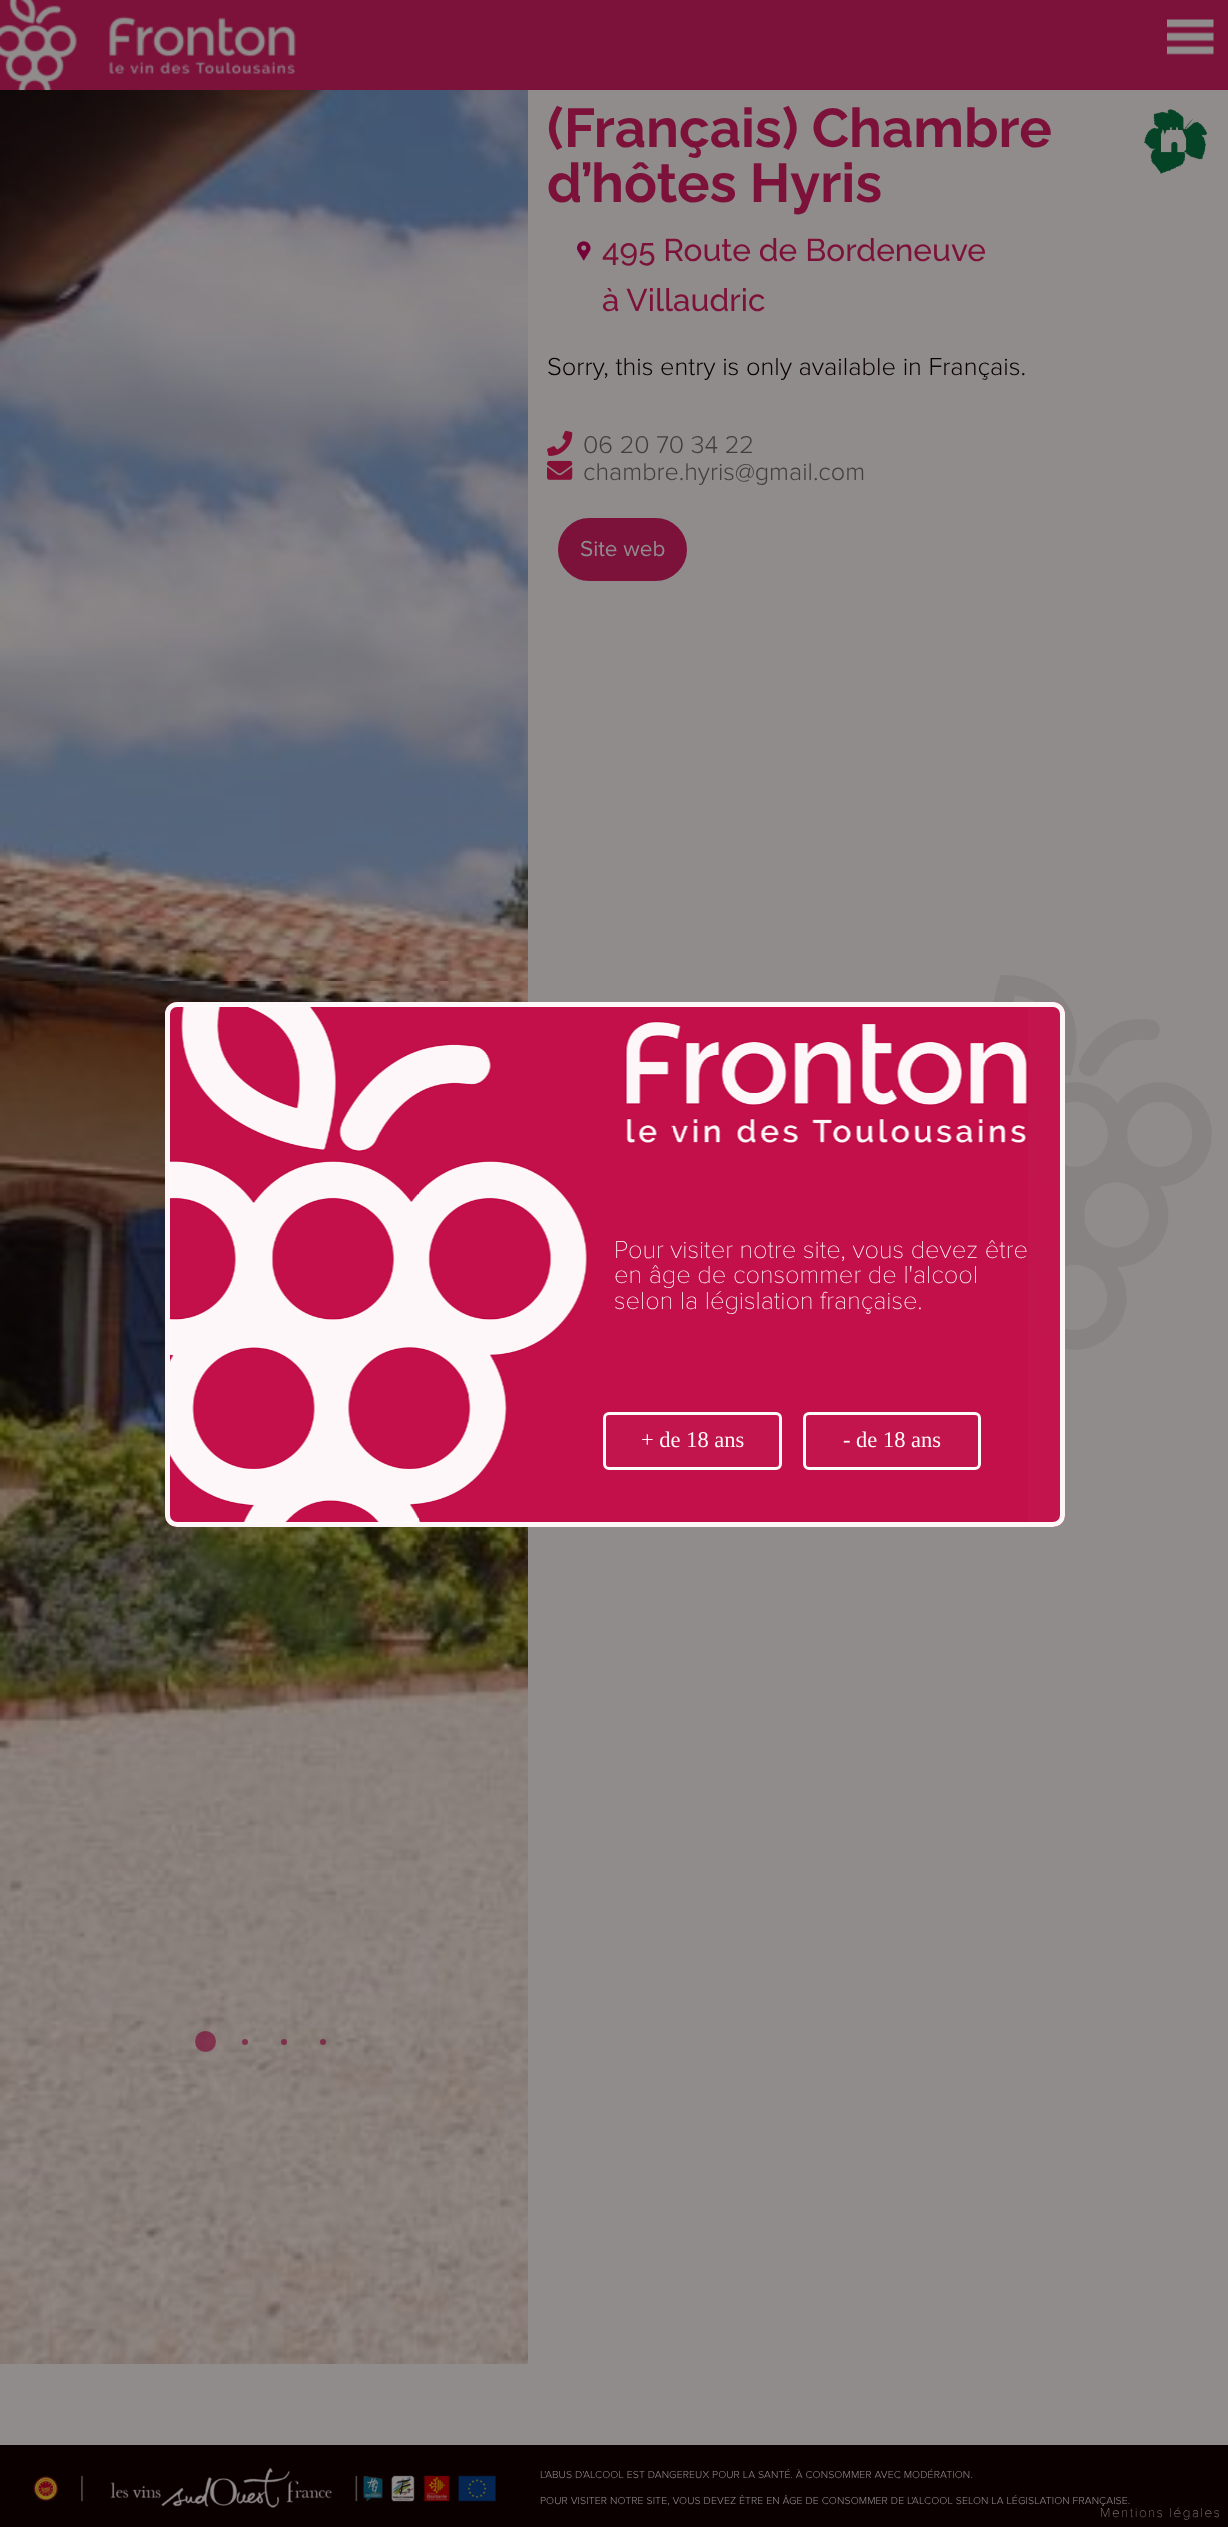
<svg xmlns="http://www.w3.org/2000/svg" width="1228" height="2527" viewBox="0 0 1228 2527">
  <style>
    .t1 { font: bold 54.5px Raleway; fill: #7c113a; }
    .t2 { font: 500 31.5px Raleway; fill: #7c113a; }
    .t3 { font: 300 25.5px Proxima Nova; fill: #0b0000; }
    .t4 { font: 300 25.25px Proxima Nova; fill: #433e3e; }
    .t5 { font: 22.5px Proxima Nova; fill: #918c8c; }
    .t6 { font: 100 25.5px Proxima Nova; fill: #fdf7f9; }
    .t7 { font: 22.5px Liberation Serif; fill: #fdf7f9; }
    .t8 { font: 300 10.5px Proxima Nova; letter-spacing: 0.11px; fill: #918c8c; }
    .t9 { font: 100 13.5px Proxima Nova; letter-spacing: 1.5px; fill: #918c8c; }
  </style>
  <rect width="100%" height="100%" fill="#918c8c"/>
  <rect x="0" y="0" width="1228" height="90" fill="#7c113a"/>
  <image x="0" y="0" width="296" height="90" href="images/1.png"/>
  <image x="1167" y="19" width="47" height="36" href="images/2.png"/>
  <image x="0" y="90" width="528" height="2274" href="images/3.png"/>
  <circle cx="205.5" cy="2041.5" r="10.5" fill="#7c113ab3"/>
  <circle cx="245" cy="2042" r="3" fill="#7c113ab3"/>
  <circle cx="284" cy="2042" r="3" fill="#7c113ab3"/>
  <circle cx="323" cy="2042" r="3" fill="#7c113ab3"/>
  <image x="938" y="975" width="274" height="375" href="images/4.png"/>
  <text x="547" y="147" class="t1">(Français) Chambre</text>
  <text x="547" y="202" class="t1">d’hôtes Hyris</text>
  <image x="1144" y="109" width="64" height="65" href="images/5.png"/>
  <image x="577" y="241" width="14" height="20" href="images/6.png"/>
  <text x="602" y="261" class="t2">495 Route de Bordeneuve</text>
  <text x="602" y="311" class="t2">à Villaudric</text>
  <text x="547" y="375" class="t3">Sorry, this entry is only available in Français.</text>
  <image x="547" y="430" width="26" height="26" href="images/7.png"/>
  <text x="583" y="453" class="t4">06 20 70 34 22</text>
  <image x="547" y="460" width="26" height="20" href="images/8.png"/>
  <text x="583" y="480" class="t4">chambre.hyris@gmail.com</text>
  <rect x="556.5" y="516.5" width="132" height="66" rx="33" fill="#7c113a" stroke="#918c8c" stroke-width="3"/>
  <text x="580" y="556" class="t5">Site web</text>
  <rect x="165" y="1002" width="900" height="525" rx="12" fill="#c4114bf7"/>
  <image x="169" y="1006" width="859" height="517" href="images/9.png"/>
  <rect x="167.5" y="1004.5" width="895" height="520" rx="9.5" fill="none" stroke="#fffffff7" stroke-width="5"/>
  <text x="614" y="1258" class="t6">Pour visiter notre site, vous devez être</text>
  <text x="614" y="1283" class="t6">en âge de consommer de l'alcool</text>
  <text x="614" y="1309" class="t6">selon la législation française.</text>
  <rect x="604.5" y="1413.5" width="176" height="55" rx="4.5" fill="#c2154d" stroke="#fbfbfb" stroke-width="3"/>
  <text x="641" y="1447" class="t7">+ de 18 ans</text>
  <rect x="804.5" y="1413.5" width="175" height="55" rx="4.5" fill="#c2154d" stroke="#fbfbfb" stroke-width="3"/>
  <text x="843" y="1447" class="t7">- de 18 ans</text>
  <rect x="0" y="2445" width="1228" height="82" fill="#0b0000"/>
  <image x="33" y="2468" width="463" height="40" href="images/10.png"/>
  <text x="540" y="2478" class="t8">L'ABUS D'ALCOOL EST DANGEREUX POUR LA SANTÉ. À CONSOMMER AVEC MODÉRATION.</text>
  <text x="540" y="2504" class="t8">POUR VISITER NOTRE SITE, VOUS DEVEZ ÊTRE EN ÂGE DE CONSOMMER DE L'ALCOOL SELON LA LÉGISLATION FRANÇAISE.</text>
  <text x="1100" y="2517" class="t9">Mentions légales</text>
</svg>
